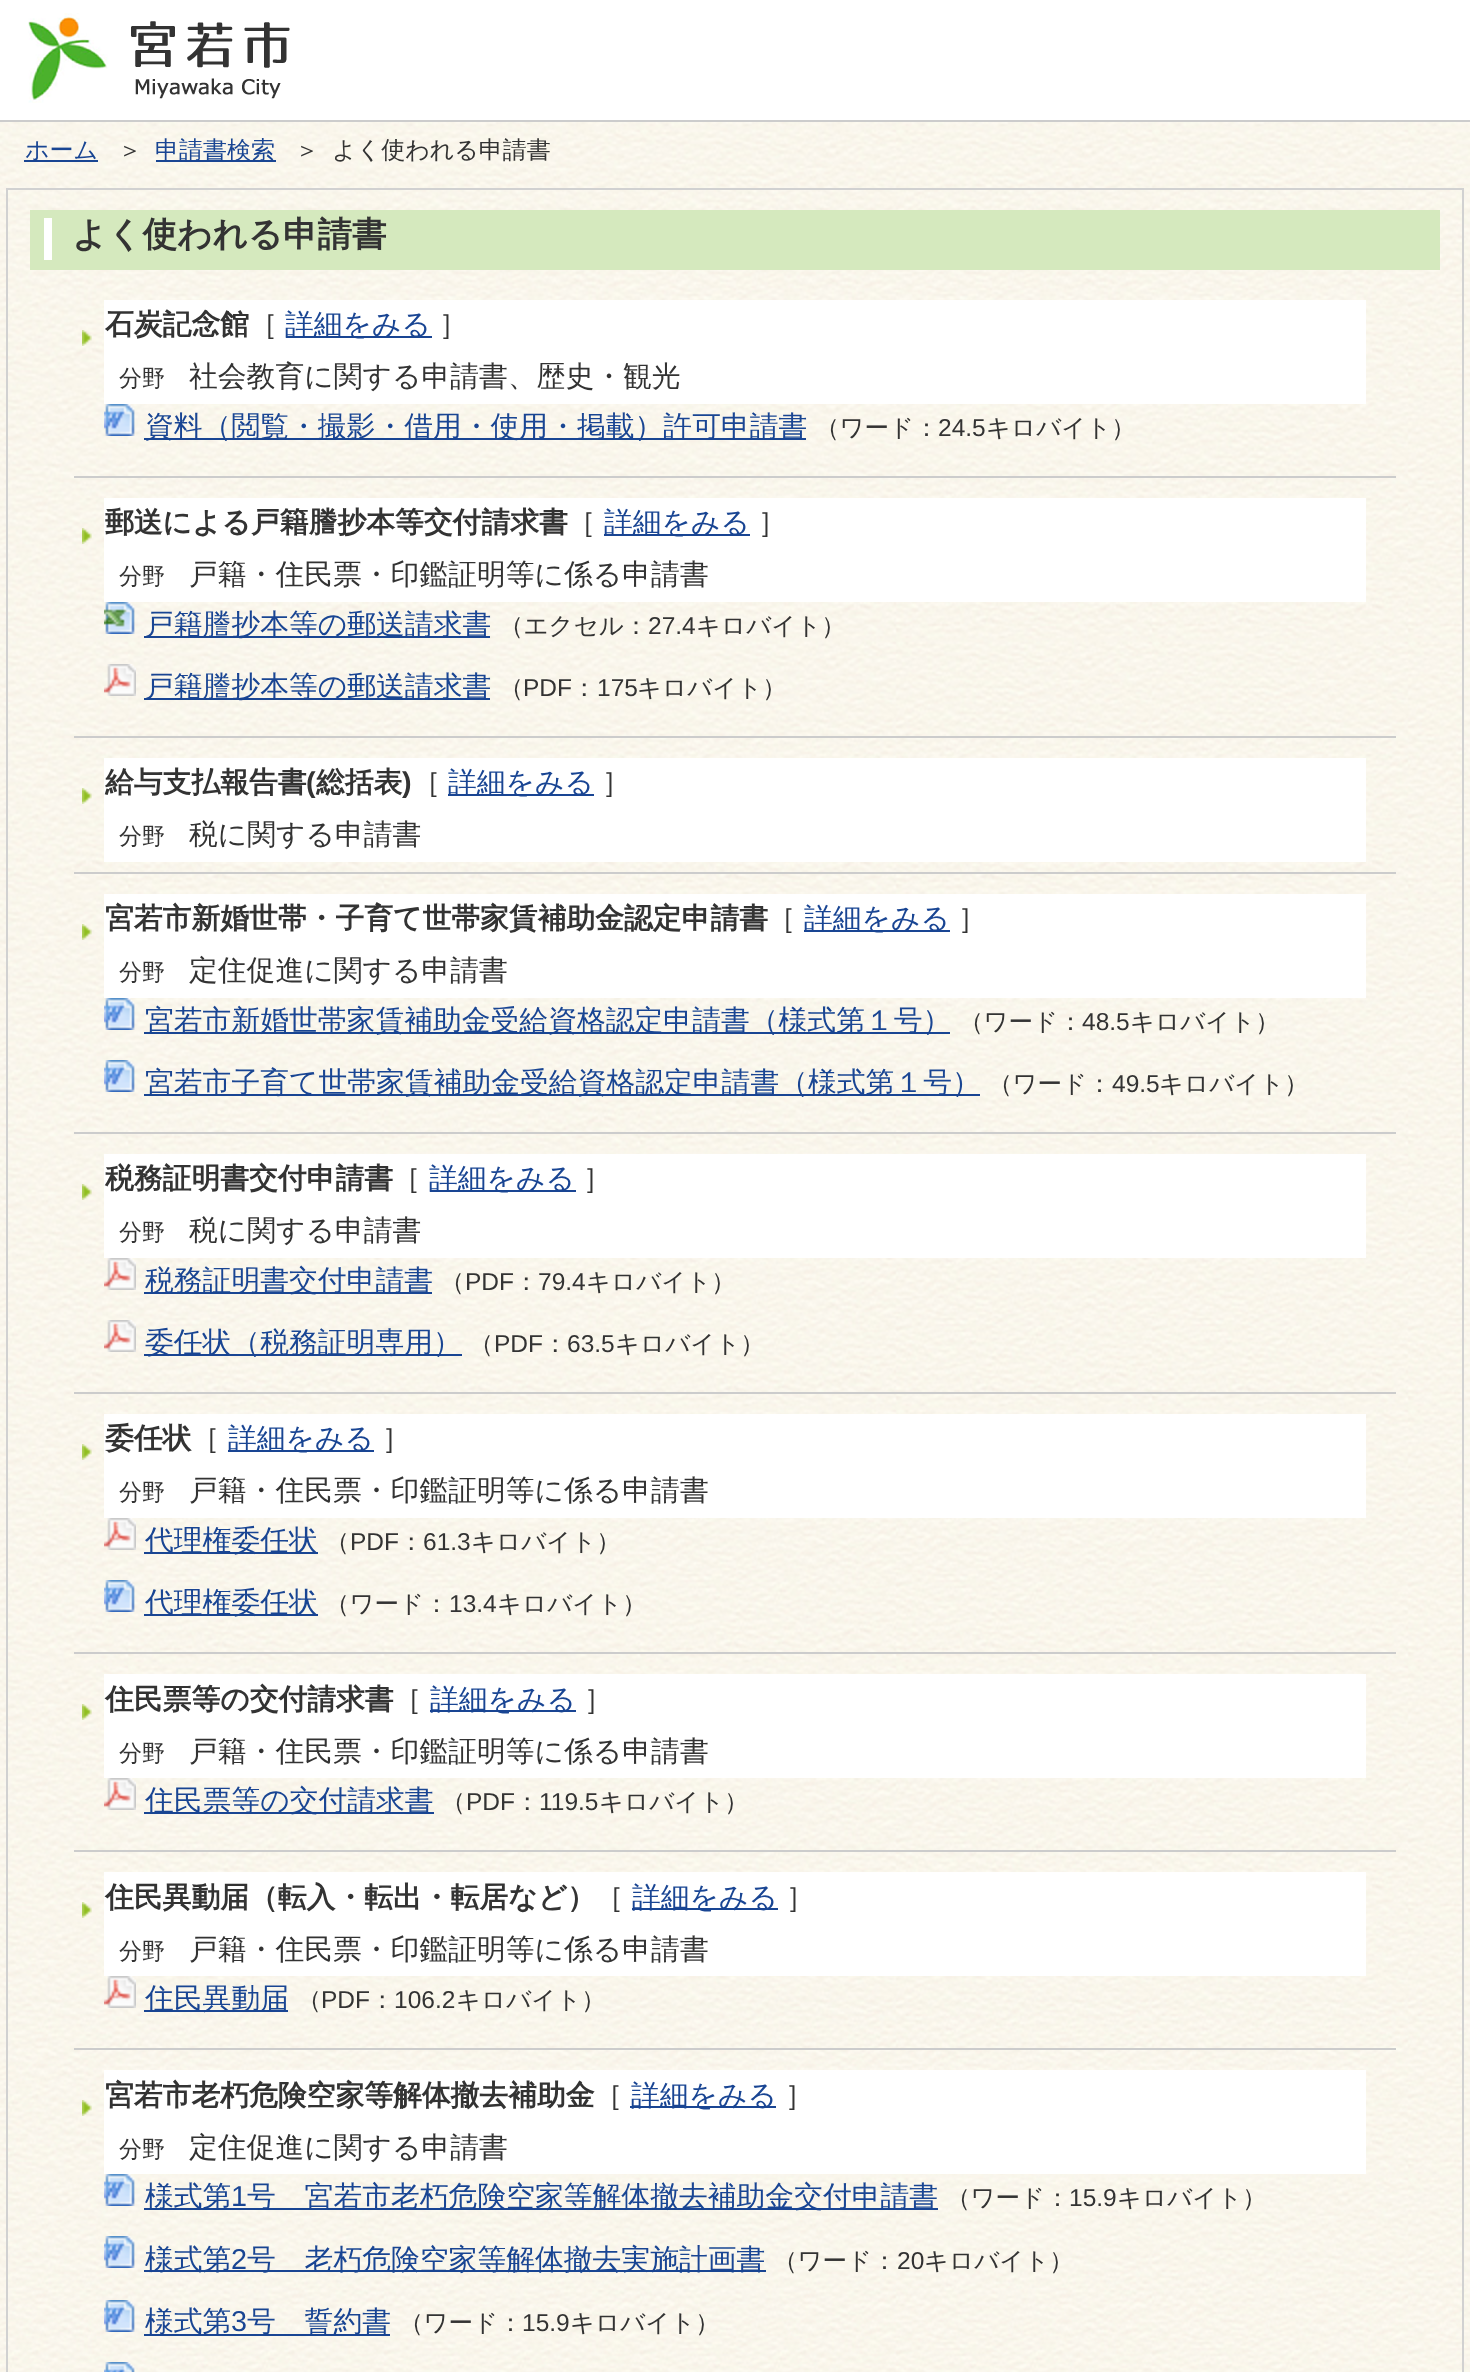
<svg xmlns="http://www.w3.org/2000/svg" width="1470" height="2372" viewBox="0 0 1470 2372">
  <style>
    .t1 { font: 500 24px WenQuanYi Zen Hei; fill: #194593; }
    .t2 { font: 500 24px WenQuanYi Zen Hei; fill: #333; }
    .t3 { font: bold 34.5px WenQuanYi Zen Hei; fill: #333; }
    .t4 { font: bold 28.8px WenQuanYi Zen Hei; fill: #333; }
    .t5 { font: 500 28.8px WenQuanYi Zen Hei; fill: #333; }
    .t6 { font: 500 28.8px WenQuanYi Zen Hei; fill: #194593; }
    .t7 { font: 500 23px WenQuanYi Zen Hei; fill: #333; }
    .t8 { font: 500 24.5px WenQuanYi Zen Hei; fill: #333; }
    .t9 { font: 24.5px Liberation Sans; fill: #333; }
    .t10 { font: bold 28.8px Liberation Sans; fill: #333; }
    .t11 { font: 28.8px Liberation Sans; fill: #194593; }
  </style>
  <rect width="100%" height="100%" fill="#fff"/>
  <image x="0" y="122" width="1470" height="2250" href="images/1.png"/>
  <rect x="0" y="120" width="1470" height="2" fill="#ccc"/>
  <image x="28" y="13" width="262" height="90" href="images/2.png"/>
  <rect x="24" y="160" width="74" height="2" fill="#194593"/>
  <text x="25" y="158" class="t1">ホーム</text>
  <text x="118" y="158" class="t2">＞</text>
  <rect x="156" y="160" width="120" height="2" fill="#194593"/>
  <text x="155" y="158" class="t1">申請書検索</text>
  <text x="295" y="158" class="t2">＞</text>
  <text x="332" y="158" class="t2">よく使われる申請書</text>
  <rect x="7" y="189" width="1456" height="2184" fill="none" stroke="#d1d1d1" stroke-width="2"/>
  <rect x="30" y="210" width="1410" height="60" fill="#d5e9be"/>
  <rect x="44" y="218" width="8" height="42" fill="#fff"/>
  <text x="72" y="246" class="t3">よく使われる申請書</text>
  <image x="82" y="330" width="10" height="16" href="images/3.png"/>
  <rect x="74" y="476" width="1322" height="2" fill="#ccc"/>
  <rect x="104" y="300" width="1262" height="104" fill="#fff"/>
  <text x="105" y="334" class="t4">石炭記念館</text>
  <text x="249" y="334" class="t5">［</text>
  <rect x="286" y="336" width="146" height="2" fill="#194593"/>
  <text x="285" y="334" class="t6">詳細をみる</text>
  <text x="439" y="334" class="t5">］</text>
  <text x="119" y="386" class="t7">分野</text>
  <text x="189" y="386" class="t5">社会教育に関する申請書、歴史・観光</text>
  <image x="104" y="404" width="31" height="32" href="images/4.png"/>
  <rect x="144" y="438" width="662" height="2" fill="#194593"/>
  <text x="145" y="436" class="t6">資料（閲覧・撮影・借用・使用・掲載）許可申請書</text>
  <text x="815" y="436" class="t8">（ワード：</text>
  <text x="938" y="436" class="t9">24.5</text>
  <text x="986" y="436" class="t8">キロバイト）</text>
  <image x="82" y="528" width="10" height="16" href="images/5.png"/>
  <rect x="74" y="736" width="1322" height="2" fill="#ccc"/>
  <rect x="104" y="498" width="1262" height="104" fill="#fff"/>
  <text x="105" y="532" class="t4">郵送による戸籍謄抄本等交付請求書</text>
  <text x="567" y="532" class="t5">［</text>
  <rect x="604" y="534" width="146" height="2" fill="#194593"/>
  <text x="604" y="532" class="t6">詳細をみる</text>
  <text x="758" y="532" class="t5">］</text>
  <text x="119" y="584" class="t7">分野</text>
  <text x="189" y="584" class="t5">戸籍・住民票・印鑑証明等に係る申請書</text>
  <image x="104" y="602" width="31" height="32" href="images/6.png"/>
  <rect x="144" y="636" width="346" height="2" fill="#194593"/>
  <text x="145" y="634" class="t6">戸籍謄抄本等の郵送請求書</text>
  <text x="499" y="634" class="t8">（エクセル：</text>
  <text x="648" y="634" class="t9">27.4</text>
  <text x="696" y="634" class="t8">キロバイト）</text>
  <image x="104" y="664" width="32" height="32" href="images/7.png"/>
  <rect x="144" y="698" width="346" height="2" fill="#194593"/>
  <text x="145" y="696" class="t6">戸籍謄抄本等の郵送請求書</text>
  <text x="499" y="696" class="t8">（</text>
  <text x="523" y="696" class="t9">PDF</text>
  <text x="572" y="696" class="t8">：</text>
  <text x="597" y="696" class="t9">175</text>
  <text x="637" y="696" class="t8">キロバイト）</text>
  <image x="82" y="788" width="10" height="16" href="images/8.png"/>
  <rect x="74" y="872" width="1322" height="2" fill="#ccc"/>
  <rect x="104" y="758" width="1262" height="104" fill="#fff"/>
  <text x="105" y="792" class="t4">給与支払報告書</text>
  <text x="306" y="792" class="t10">(</text>
  <text x="316" y="792" class="t4">総括表</text>
  <text x="402" y="792" class="t10">)</text>
  <text x="412" y="792" class="t5">［</text>
  <rect x="448" y="794" width="146" height="2" fill="#194593"/>
  <text x="448" y="792" class="t6">詳細をみる</text>
  <text x="602" y="792" class="t5">］</text>
  <text x="119" y="844" class="t7">分野</text>
  <text x="189" y="844" class="t5">税に関する申請書</text>
  <image x="82" y="924" width="10" height="16" href="images/9.png"/>
  <rect x="74" y="1132" width="1322" height="2" fill="#ccc"/>
  <rect x="104" y="894" width="1262" height="104" fill="#fff"/>
  <text x="105" y="928" class="t4">宮若市新婚世帯・子育て世帯家賃補助金認定申請書</text>
  <text x="767" y="928" class="t5">［</text>
  <rect x="804" y="930" width="146" height="2" fill="#194593"/>
  <text x="804" y="928" class="t6">詳細をみる</text>
  <text x="958" y="928" class="t5">］</text>
  <text x="119" y="980" class="t7">分野</text>
  <text x="189" y="980" class="t5">定住促進に関する申請書</text>
  <image x="104" y="998" width="31" height="32" href="images/10.png"/>
  <rect x="144" y="1032" width="806" height="2" fill="#194593"/>
  <text x="145" y="1030" class="t6">宮若市新婚世帯家賃補助金受給資格認定申請書（様式第１号）</text>
  <text x="959" y="1030" class="t8">（ワード：</text>
  <text x="1082" y="1030" class="t9">48.5</text>
  <text x="1130" y="1030" class="t8">キロバイト）</text>
  <image x="104" y="1060" width="31" height="32" href="images/11.png"/>
  <rect x="144" y="1094" width="836" height="2" fill="#194593"/>
  <text x="145" y="1092" class="t6">宮若市子育て世帯家賃補助金受給資格認定申請書（様式第１号）</text>
  <text x="988" y="1092" class="t8">（ワード：</text>
  <text x="1112" y="1092" class="t9">49.5</text>
  <text x="1159" y="1092" class="t8">キロバイト）</text>
  <image x="82" y="1184" width="10" height="16" href="images/12.png"/>
  <rect x="74" y="1392" width="1322" height="2" fill="#ccc"/>
  <rect x="104" y="1154" width="1262" height="104" fill="#fff"/>
  <text x="105" y="1188" class="t4">税務証明書交付申請書</text>
  <text x="392" y="1188" class="t5">［</text>
  <rect x="430" y="1190" width="146" height="2" fill="#194593"/>
  <text x="429" y="1188" class="t6">詳細をみる</text>
  <text x="583" y="1188" class="t5">］</text>
  <text x="119" y="1240" class="t7">分野</text>
  <text x="189" y="1240" class="t5">税に関する申請書</text>
  <image x="104" y="1258" width="32" height="32" href="images/13.png"/>
  <rect x="144" y="1292" width="288" height="2" fill="#194593"/>
  <text x="145" y="1290" class="t6">税務証明書交付申請書</text>
  <text x="440" y="1290" class="t8">（</text>
  <text x="465" y="1290" class="t9">PDF</text>
  <text x="514" y="1290" class="t8">：</text>
  <text x="538" y="1290" class="t9">79.4</text>
  <text x="586" y="1290" class="t8">キロバイト）</text>
  <image x="104" y="1320" width="32" height="32" href="images/14.png"/>
  <rect x="144" y="1354" width="318" height="2" fill="#194593"/>
  <text x="145" y="1352" class="t6">委任状（税務証明専用）</text>
  <text x="469" y="1352" class="t8">（</text>
  <text x="494" y="1352" class="t9">PDF</text>
  <text x="543" y="1352" class="t8">：</text>
  <text x="567" y="1352" class="t9">63.5</text>
  <text x="615" y="1352" class="t8">キロバイト）</text>
  <image x="82" y="1444" width="10" height="16" href="images/15.png"/>
  <rect x="74" y="1652" width="1322" height="2" fill="#ccc"/>
  <rect x="104" y="1414" width="1262" height="104" fill="#fff"/>
  <text x="105" y="1448" class="t4">委任状</text>
  <text x="191" y="1448" class="t5">［</text>
  <rect x="228" y="1450" width="146" height="2" fill="#194593"/>
  <text x="228" y="1448" class="t6">詳細をみる</text>
  <text x="382" y="1448" class="t5">］</text>
  <text x="119" y="1500" class="t7">分野</text>
  <text x="189" y="1500" class="t5">戸籍・住民票・印鑑証明等に係る申請書</text>
  <image x="104" y="1518" width="32" height="32" href="images/16.png"/>
  <rect x="144" y="1552" width="174" height="2" fill="#194593"/>
  <text x="145" y="1550" class="t6">代理権委任状</text>
  <text x="325" y="1550" class="t8">（</text>
  <text x="350" y="1550" class="t9">PDF</text>
  <text x="399" y="1550" class="t8">：</text>
  <text x="423" y="1550" class="t9">61.3</text>
  <text x="471" y="1550" class="t8">キロバイト）</text>
  <image x="104" y="1580" width="31" height="32" href="images/17.png"/>
  <rect x="144" y="1614" width="174" height="2" fill="#194593"/>
  <text x="145" y="1612" class="t6">代理権委任状</text>
  <text x="325" y="1612" class="t8">（ワード：</text>
  <text x="449" y="1612" class="t9">13.4</text>
  <text x="497" y="1612" class="t8">キロバイト）</text>
  <image x="82" y="1704" width="10" height="16" href="images/18.png"/>
  <rect x="74" y="1850" width="1322" height="2" fill="#ccc"/>
  <rect x="104" y="1674" width="1262" height="104" fill="#fff"/>
  <text x="105" y="1709" class="t4">住民票等の交付請求書</text>
  <text x="393" y="1709" class="t5">［</text>
  <rect x="430" y="1710" width="146" height="2" fill="#194593"/>
  <text x="430" y="1709" class="t6">詳細をみる</text>
  <text x="584" y="1709" class="t5">］</text>
  <text x="119" y="1761" class="t7">分野</text>
  <text x="189" y="1761" class="t5">戸籍・住民票・印鑑証明等に係る申請書</text>
  <image x="104" y="1778" width="32" height="32" href="images/19.png"/>
  <rect x="144" y="1812" width="290" height="2" fill="#194593"/>
  <text x="145" y="1810" class="t6">住民票等の交付請求書</text>
  <text x="441" y="1810" class="t8">（</text>
  <text x="466" y="1810" class="t9">PDF</text>
  <text x="515" y="1810" class="t8">：</text>
  <text x="539" y="1810" class="t9">119.5</text>
  <text x="599" y="1810" class="t8">キロバイト）</text>
  <image x="82" y="1902" width="10" height="16" href="images/20.png"/>
  <rect x="74" y="2048" width="1322" height="2" fill="#ccc"/>
  <rect x="104" y="1872" width="1262" height="104" fill="#fff"/>
  <text x="105" y="1907" class="t4">住民異動届（転入・転出・転居など）</text>
  <text x="595" y="1907" class="t5">［</text>
  <rect x="632" y="1908" width="146" height="2" fill="#194593"/>
  <text x="632" y="1907" class="t6">詳細をみる</text>
  <text x="786" y="1907" class="t5">］</text>
  <text x="119" y="1959" class="t7">分野</text>
  <text x="189" y="1959" class="t5">戸籍・住民票・印鑑証明等に係る申請書</text>
  <image x="104" y="1976" width="32" height="32" href="images/21.png"/>
  <rect x="144" y="2010" width="144" height="2" fill="#194593"/>
  <text x="145" y="2008" class="t6">住民異動届</text>
  <text x="297" y="2008" class="t8">（</text>
  <text x="321" y="2008" class="t9">PDF</text>
  <text x="370" y="2008" class="t8">：</text>
  <text x="394" y="2008" class="t9">106.2</text>
  <text x="456" y="2008" class="t8">キロバイト）</text>
  <image x="82" y="2100" width="10" height="16" href="images/22.png"/>
  <rect x="104" y="2070" width="1262" height="104" fill="#fff"/>
  <text x="105" y="2105" class="t4">宮若市老朽危険空家等解体撤去補助金</text>
  <text x="594" y="2105" class="t5">［</text>
  <rect x="630" y="2106" width="146" height="2" fill="#194593"/>
  <text x="631" y="2105" class="t6">詳細をみる</text>
  <text x="785" y="2105" class="t5">］</text>
  <text x="119" y="2157" class="t7">分野</text>
  <text x="189" y="2157" class="t5">定住促進に関する申請書</text>
  <image x="104" y="2174" width="31" height="32" href="images/23.png"/>
  <rect x="144" y="2208" width="794" height="2" fill="#194593"/>
  <text x="145" y="2206" class="t6">様式第</text>
  <text x="231" y="2206" class="t11">1</text>
  <text x="247" y="2206" class="t6">号　宮若市老朽危険空家等解体撤去補助金交付申請書</text>
  <text x="946" y="2206" class="t8">（ワード：</text>
  <text x="1069" y="2206" class="t9">15.9</text>
  <text x="1117" y="2206" class="t8">キロバイト）</text>
  <image x="104" y="2236" width="31" height="32" href="images/24.png"/>
  <rect x="144" y="2270" width="622" height="2" fill="#194593"/>
  <text x="145" y="2269" class="t6">様式第</text>
  <text x="231" y="2269" class="t11">2</text>
  <text x="247" y="2269" class="t6">号　老朽危険空家等解体撤去実施計画書</text>
  <text x="773" y="2269" class="t8">（ワード：</text>
  <text x="897" y="2269" class="t9">20</text>
  <text x="924" y="2269" class="t8">キロバイト）</text>
  <image x="104" y="2300" width="31" height="32" href="images/25.png"/>
  <rect x="144" y="2334" width="246" height="2" fill="#194593"/>
  <text x="145" y="2331" class="t6">様式第</text>
  <text x="231" y="2331" class="t11">3</text>
  <text x="247" y="2331" class="t6">号　誓約書</text>
  <text x="399" y="2331" class="t8">（ワード：</text>
  <text x="522" y="2331" class="t9">15.9</text>
  <text x="570" y="2331" class="t8">キロバイト）</text>
  <image x="104" y="2362" width="31" height="10" href="images/26.png"/>
</svg>
